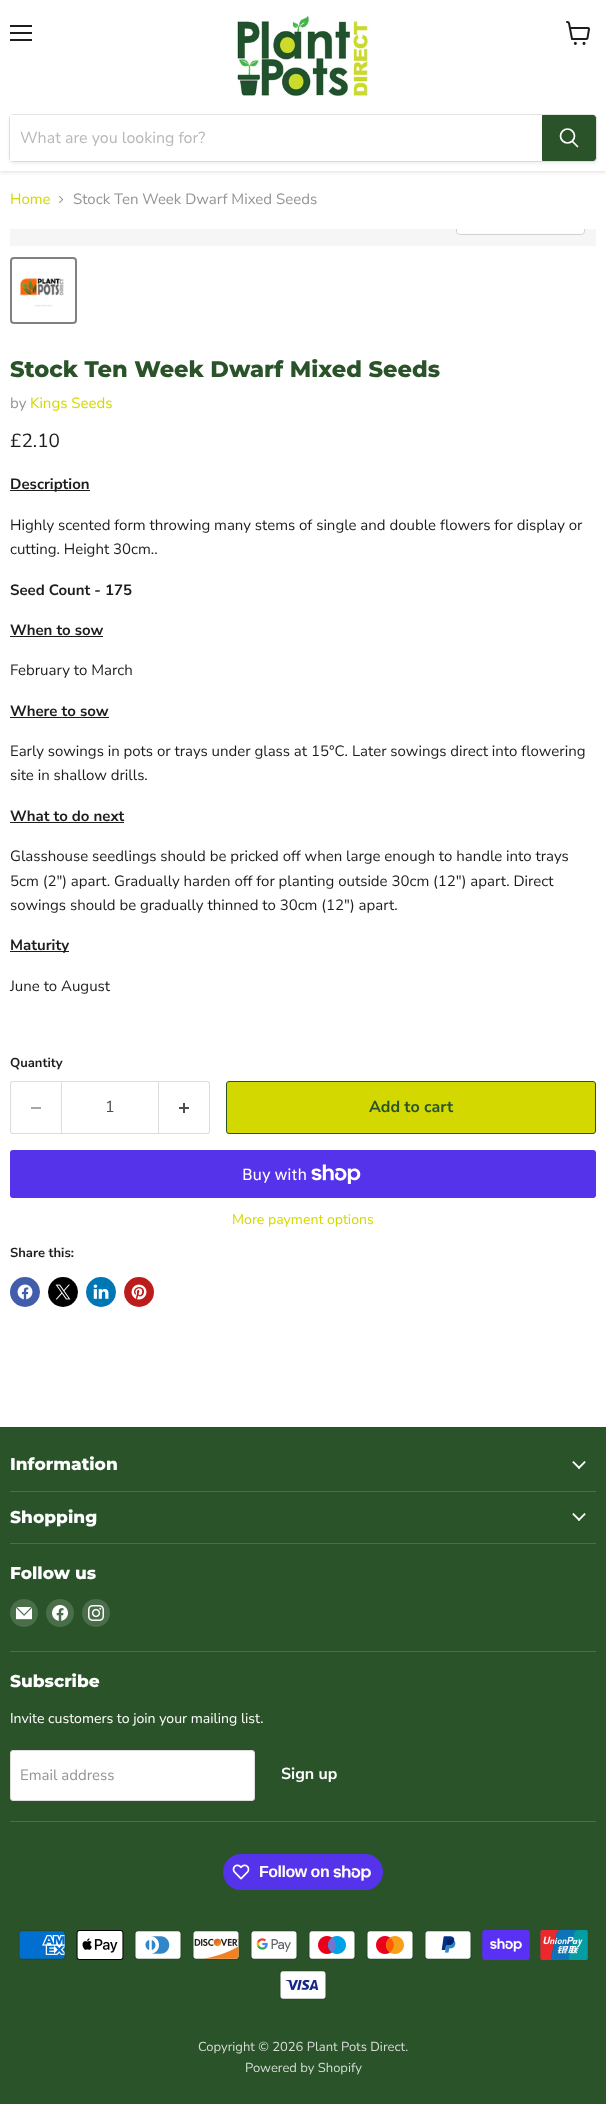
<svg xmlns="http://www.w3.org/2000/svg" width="606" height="2128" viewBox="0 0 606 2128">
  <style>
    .t1 { font: 16px Nunito Sans; fill: #b8b8b8; }
    .t2 { font: 15px Nunito Sans; fill: #d3d800; }
    .t3 { font: 15px Nunito Sans; fill: #949494; }
    .t4 { font: 800 22.5px Montserrat; fill: #2a532a; }
    .t5 { font: 19px Nunito Sans; fill: #1d1d1d; }
    .t6 { font: bold 15px Nunito Sans; fill: #1d1d1d; }
    .t7 { font: 15px Nunito Sans; fill: #1d1d1d; }
    .t8 { font: bold 13px Nunito Sans; fill: #1d1d1d; }
    .t9 { font: 16px Nunito Sans; fill: #4d4d4d; }
    .t10 { font: bold 16px Nunito Sans; fill: #2a532a; }
    .t11 { font: 16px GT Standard; fill: #fff; }
    .t12 { font: 14.1px Nunito Sans; fill: #d3d800; }
    .t13 { font: 800 17px Montserrat; fill: #fff; }
    .t14 { font: 14.1px Nunito Sans; fill: #fff; }
    .t15 { font: bold 16px Nunito Sans; fill: #fff; }
    .t16 { font: bold 16px Liberation Sans; letter-spacing: -0.5px; fill: #fff; }
    .t17 { font: 13px Nunito Sans; fill: #d4ddd4; }
  </style>
  <defs>
    <clipPath id="clip1"><rect x="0" y="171" width="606" height="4"/></clipPath>
    <clipPath id="clip2"><rect x="10" y="229" width="586" height="17"/></clipPath>
  </defs>
  <rect width="100%" height="100%" fill="#fff"/>
  <g clip-path="url(#clip1)">
    <rect x="0" y="1" width="606" height="171" fill="#80808040" filter="blur(2px)"/>
  </g>
  <rect x="10" y="25" width="22" height="2" fill="#1d1d1d"/>
  <rect x="10" y="32" width="22" height="2" fill="#1d1d1d"/>
  <rect x="10" y="39" width="22" height="2" fill="#1d1d1d"/>
  <image x="566" y="21" width="24" height="24" href="images/1.png"/>
  <image x="236" y="15" width="134" height="82" href="images/2.png"/>
  <rect x="9" y="116" width="588" height="48" rx="4" fill="#8080801c" filter="blur(1.5px)"/>
  <rect x="9.5" y="114.5" width="587" height="47" rx="3.5" fill="none" stroke="#80808033"/>
  <rect x="10" y="115" width="532" height="46" fill="#fff"/>
  <text x="20" y="143" class="t1">What are you looking for?</text>
  <path d="M542.5 115.5H593C594.5 115.5 595.5 116.5 595.5 118V158C595.5 159.5 594.5 160.5 593 160.5H542.5Z" fill="#2a532a" stroke="#2a532a"/>
  <path d="M577.5 146.5L572.5 141.5" fill="none" stroke="#fff" stroke-width="1.7" stroke-linecap="round"/>
  <circle cx="567.5" cy="136" r="7" fill="none" stroke="#fff" stroke-width="1.7"/>
  <text x="10" y="204" class="t2">Home</text>
  <image x="59" y="196" width="5" height="8" href="images/3.png"/>
  <text x="73" y="204" class="t3">Stock Ten Week Dwarf Mixed Seeds</text>
  <rect x="10" y="229" width="586" height="17" fill="#f6f6f6"/>
  <g clip-path="url(#clip2)">
    <rect x="456.5" y="206.5" width="128" height="28" rx="3.5" fill="none" stroke="#d1d1d1"/>
  </g>
  <path d="M457 229H584V231C584 232.5 582.5 234 581 234H460C458.5 234 457 232.5 457 231Z" fill="#ffffffe6"/>
  <rect x="11" y="258" width="65" height="65" rx="3" fill="none" stroke="#818181" stroke-width="2"/>
  <image x="19" y="276" width="45" height="31" href="images/4.png"/>
  <text x="10" y="377" class="t4">Stock Ten Week Dwarf Mixed Seeds</text>
  <text x="10" y="408" class="t3">by</text>
  <text x="30" y="408" class="t2">Kings Seeds</text>
  <text x="10" y="447" class="t5">£2.10</text>
  <rect x="10" y="490" width="80" height="1" fill="#1d1d1d"/>
  <text x="10" y="489" class="t6">Description</text>
  <text x="10" y="530" class="t7">Highly scented form throwing many stems of single and double flowers for display or</text>
  <text x="10" y="554" class="t7">cutting. Height 30cm..</text>
  <text x="10" y="595" class="t6">Seed Count - 175</text>
  <text x="10" y="635" class="t6">When to sow</text>
  <rect x="10" y="636" width="93" height="1" fill="#1d1d1d"/>
  <text x="10" y="675" class="t7">February to March</text>
  <text x="10" y="716" class="t6">Where to sow</text>
  <rect x="10" y="717" width="99" height="1" fill="#1d1d1d"/>
  <text x="10" y="756" class="t7">Early sowings in pots or trays under glass at 15°C. Later sowings direct into flowering</text>
  <text x="10" y="780" class="t7">site in shallow drills.</text>
  <text x="10" y="821" class="t6">What to do next</text>
  <rect x="10" y="822" width="114" height="1" fill="#1d1d1d"/>
  <text x="10" y="861" class="t7">Glasshouse seedlings should be pricked off when large enough to handle into trays</text>
  <text x="10" y="886" class="t7">5cm (2") apart. Gradually harden off for planting outside 30cm (12") apart. Direct</text>
  <text x="10" y="910" class="t7">sowings should be gradually thinned to 30cm (12") apart.</text>
  <rect x="10" y="951" width="59" height="1" fill="#1d1d1d"/>
  <text x="10" y="950" class="t6">Maturity</text>
  <text x="10" y="991" class="t7">June to August</text>
  <text x="10" y="1067" class="t8">Quantity</text>
  <path d="M13 1081H61V1134H13C11 1134 10 1133 10 1131V1084C10 1082 11 1081 13 1081ZM13 1082H61V1133H13C12 1133 11 1132 11 1131V1084C11 1083 12 1082 13 1082Z" fill="#ddd" fill-rule="evenodd"/>
  <rect x="31" y="1107" width="10" height="2" fill="#a6a6a6"/>
  <rect x="61.5" y="1081.5" width="97" height="52" fill="none" stroke="#ddd"/>
  <text x="105" y="1112" class="t9">1</text>
  <path d="M159 1081H207C209 1081 210 1082 210 1084V1131C210 1133 209 1134 207 1134H159ZM159 1082H207C208 1082 209 1083 209 1084V1131C209 1132 208 1133 207 1133H159Z" fill="#ddd" fill-rule="evenodd"/>
  <image x="179" y="1103" width="10" height="10" href="images/5.png"/>
  <rect x="226.5" y="1081.5" width="369" height="52" rx="2.5" fill="#d3d800" stroke="#2a532a"/>
  <text x="369" y="1112" class="t10">Add to cart</text>
  <rect x="10" y="1150" width="586" height="48" rx="3" fill="#5433eb"/>
  <text x="242" y="1180" class="t11">Buy with</text>
  <image x="311" y="1164" width="50" height="20" href="images/6.png"/>
  <text x="232" y="1224" class="t12">More payment options</text>
  <text x="10" y="1257" class="t8">Share this:</text>
  <circle cx="25" cy="1292" r="15" fill="#425dab"/>
  <image x="17" y="1284" width="16" height="16" href="images/7.png"/>
  <circle cx="63" cy="1292" r="15" fill="#000"/>
  <image x="55" y="1284" width="16" height="16" href="images/8.png"/>
  <circle cx="101" cy="1292" r="15" fill="#0077b5"/>
  <image x="93" y="1284" width="16" height="15" href="images/9.png"/>
  <circle cx="139" cy="1292" r="15" fill="#bd1c1c"/>
  <image x="131" y="1284" width="16" height="16" href="images/10.png"/>
  <rect x="0" y="1427" width="606" height="677" fill="#2a532a"/>
  <rect x="10" y="1491" width="586" height="1" fill="#4a6d4a"/>
  <text x="10" y="1470" class="t13">Information</text>
  <image x="572" y="1461" width="14" height="8" href="images/11.png"/>
  <rect x="10" y="1543" width="586" height="1" fill="#4a6d4a"/>
  <text x="10" y="1523" class="t13">Shopping</text>
  <image x="572" y="1513" width="14" height="8" href="images/11.png"/>
  <rect x="10" y="1651" width="586" height="1" fill="#4a6d4a"/>
  <text x="10" y="1579" class="t13">Follow us</text>
  <circle cx="24" cy="1613" r="14" fill="#4a6d4a"/>
  <image x="16" y="1607" width="16" height="13" href="images/12.png"/>
  <circle cx="60" cy="1613" r="14" fill="#4a6d4a"/>
  <image x="52" y="1605" width="16" height="16" href="images/13.png"/>
  <circle cx="96" cy="1613" r="14" fill="#4a6d4a"/>
  <image x="88" y="1605" width="16" height="16" href="images/14.png"/>
  <rect x="10" y="1821" width="586" height="1" fill="#4a6d4a"/>
  <text x="10" y="1687" class="t13">Subscribe</text>
  <text x="10" y="1723" class="t14">Invite customers to join your mailing list.</text>
  <rect x="10.5" y="1750.5" width="244" height="50" rx="2.5" fill="#fff" stroke="#ddd"/>
  <text x="20" y="1780" class="t3">Email address</text>
  <text x="281" y="1779" class="t15">Sign up</text>
  <rect x="223" y="1854" width="160" height="36" rx="18" fill="#5433eb"/>
  <image x="232" y="1864" width="18" height="16" href="images/15.png"/>
  <text x="259" y="1877" class="t16">Follow on</text>
  <image x="333" y="1865" width="38" height="16" href="images/16.png"/>
  <image x="18" y="1930" width="48" height="30" href="images/17.png"/>
  <image x="76" y="1930" width="48" height="30" href="images/18.png"/>
  <image x="134" y="1930" width="48" height="30" href="images/19.png"/>
  <image x="192" y="1930" width="48" height="30" href="images/20.png"/>
  <image x="250" y="1930" width="48" height="30" href="images/21.png"/>
  <image x="308" y="1930" width="48" height="30" href="images/22.png"/>
  <image x="366" y="1930" width="48" height="30" href="images/23.png"/>
  <image x="424" y="1930" width="48" height="30" href="images/24.png"/>
  <image x="482" y="1930" width="48" height="30" href="images/25.png"/>
  <image x="540" y="1930" width="48" height="30" href="images/26.png"/>
  <image x="279" y="1970" width="48" height="30" href="images/27.png"/>
  <text x="198" y="2051" class="t17">Copyright © 2026 Plant Pots Direct.</text>
  <text x="245" y="2072" class="t17">Powered by Shopify</text>
</svg>
